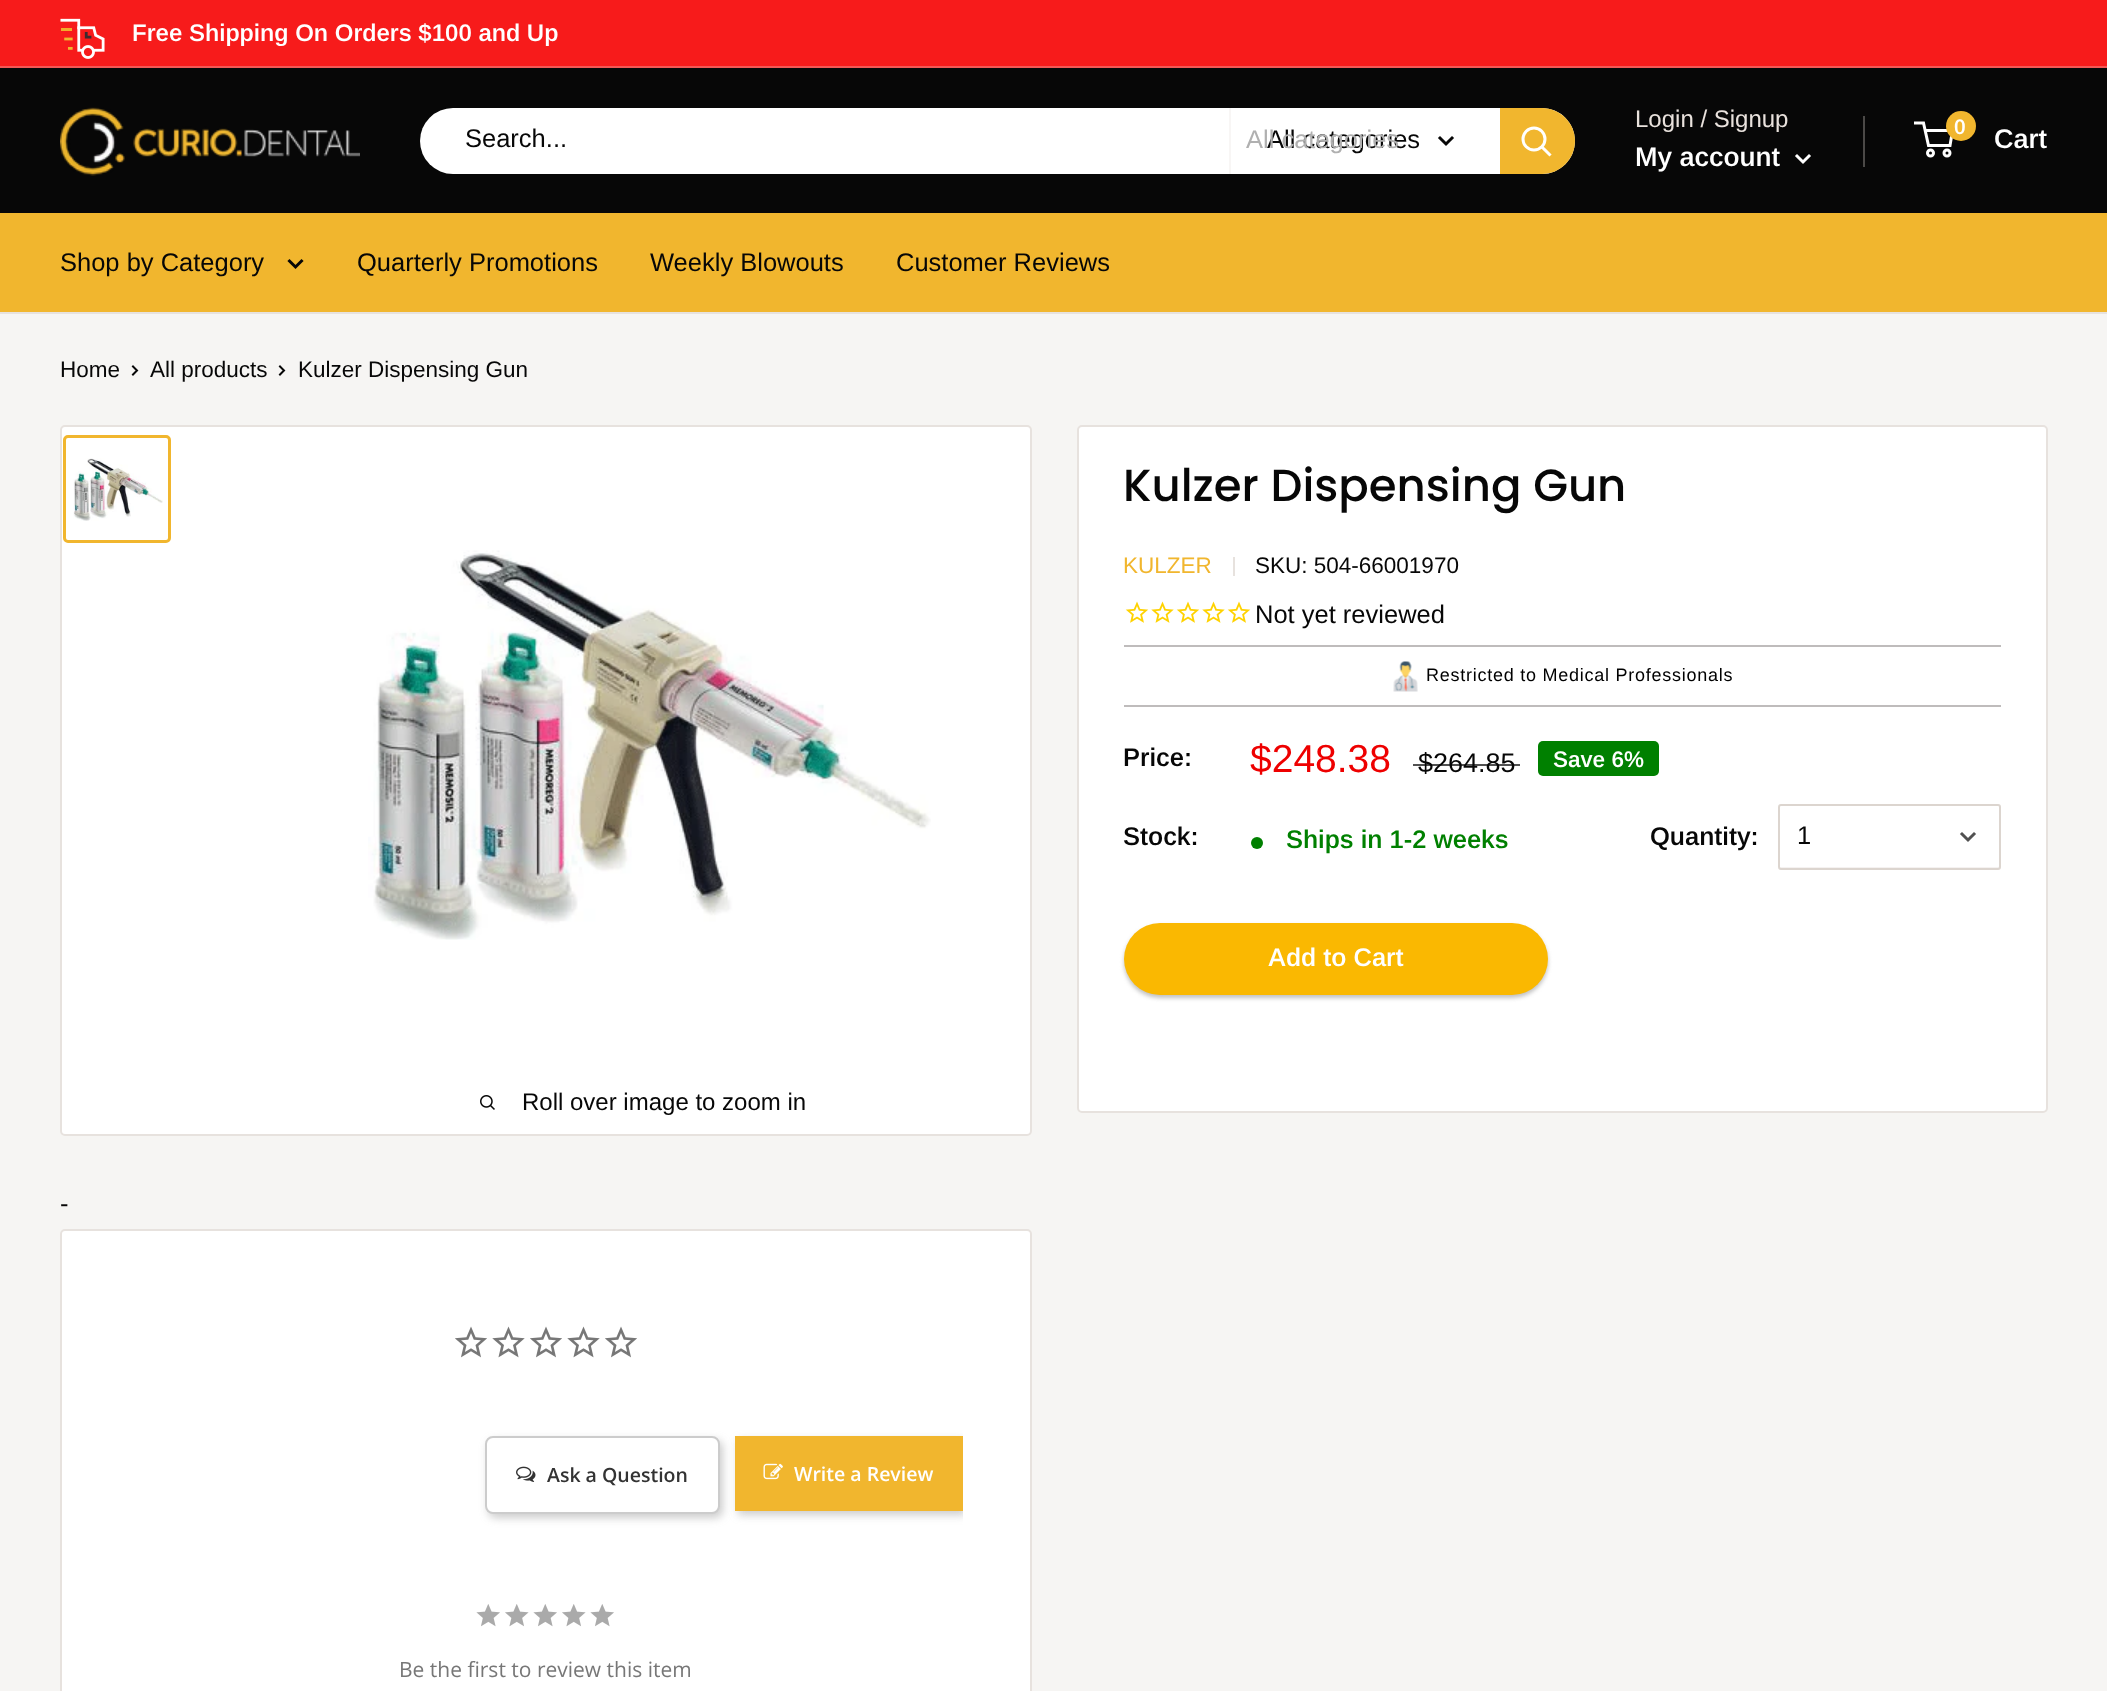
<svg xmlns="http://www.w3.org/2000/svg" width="2107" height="1691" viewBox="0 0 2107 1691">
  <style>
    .t1 { font: 600 24px Arimo; fill: #fff; }
    .t2 { font: 25.5px Arimo; fill: #070707; }
    .t3 { font: 25.5px Arimo; fill: #b0b0b0; }
    .t4 { font: 24px Arimo; fill: #e9e2dd; }
    .t5 { font: 600 27px Arimo; fill: #fff; }
    .t6 { font: 600 21px Arimo; fill: #fff; }
    .t7 { font: 22.5px Arimo; fill: #070707; }
    .t8 { font: 500 45px Poppins; fill: #070707; }
    .t9 { font: 22.5px Arimo; fill: #f1b62e; }
    .t10 { font: 18px Liberation Sans; letter-spacing: 0.75px; fill: #000; }
    .t11 { font: 600 25.5px Arimo; fill: #070707; }
    .t12 { font: 39px Arimo; fill: #e00; }
    .t13 { font: 27px Arimo; fill: #070707; }
    .t14 { font: 600 22.5px Arimo; fill: #fff; }
    .t15 { font: 600 25.5px Arimo; fill: #008000; }
    .t16 { font: 600 25.5px Arimo; fill: #fff; }
    .t17 { font: 24px Arimo; fill: #070707; }
    .t18 { font: 600 19.5px Open Sans; fill: #333; }
    .t19 { font: 600 19.5px Open Sans; fill: #fff; }
    .t20 { font: 21px Open Sans; fill: #777; }
  </style>
  <defs>
    <clipPath id="clip1"><rect x="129" y="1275" width="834" height="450"/></clipPath>
  </defs>
  <rect width="100%" height="100%" fill="#f6f5f3"/>
  <rect x="0" y="0" width="2107" height="66" fill="#f71b1b"/>
  <rect x="0" y="66" width="2107" height="2" fill="#f35755"/>
  <image x="60" y="18" width="45" height="41" href="images/1.png"/>
  <text x="132" y="41" class="t1">Free Shipping On Orders $100 and Up</text>
  <rect x="0" y="68" width="2107" height="145" fill="#070707"/>
  <image x="60" y="107" width="300" height="69" href="images/2.png"/>
  <rect x="420" y="108" width="1155" height="66" rx="33" fill="#fff"/>
  <text x="465" y="147" class="t2">Search...</text>
  <rect x="1229" y="108" width="2" height="66" fill="#f8f6f5"/>
  <text x="1267" y="148" class="t2">All categories</text>
  <text x="1246" y="148" class="t3">All categories</text>
  <path d="M1452 138L1446 144L1440 138" fill="none" stroke="#070707" stroke-width="3" stroke-linecap="square"/>
  <path d="M1500 108H1542C1560 108 1575 123 1575 141C1575 159 1560 174 1542 174H1500Z" fill="#f1b62e"/>
  <path d="M1549.5 154.5L1542 147" fill="none" stroke="#fff" stroke-width="3" stroke-linecap="square"/>
  <circle cx="1534" cy="139" r="11" fill="none" stroke="#fff" stroke-width="3"/>
  <text x="1635" y="127" class="t4">Login / Signup</text>
  <rect x="1863" y="116" width="2" height="51" fill="#4b4947"/>
  <text x="1635" y="166" class="t5">My account</text>
  <path d="M1809 156L1803 162L1797 156" fill="none" stroke="#fff" stroke-width="3" stroke-linecap="square"/>
  <circle cx="1930.5" cy="153" r="3" fill="none" stroke="#fff" stroke-width="3"/>
  <circle cx="1947" cy="153" r="3" fill="none" stroke="#fff" stroke-width="3"/>
  <path d="M1925 130.5H1952.5L1950 145.5H1928.5L1923.5 123H1914" fill="none" stroke="#fff" stroke-width="3"/>
  <circle cx="1961" cy="126" r="15" fill="#f1b62e"/>
  <text x="1954" y="134" class="t6">0</text>
  <text x="1994" y="148" class="t5">Cart</text>
  <rect x="0" y="213" width="2107" height="99" fill="#f1b62e"/>
  <rect x="0" y="312" width="2107" height="2" fill="#e7e2de"/>
  <text x="60" y="271" class="t2">Shop by Category</text>
  <path d="M301.5 261L295.5 267L289.5 261" fill="none" stroke="#070707" stroke-width="3" stroke-linecap="square"/>
  <text x="357" y="271" class="t2">Quarterly Promotions</text>
  <text x="650" y="271" class="t2">Weekly Blowouts</text>
  <text x="896" y="271" class="t2">Customer Reviews</text>
  <text x="60" y="377" class="t7">Home</text>
  <path d="M133 366.5L137 370.5L133 374.5" fill="none" stroke="#070707" stroke-width="2" stroke-linecap="square"/>
  <text x="150" y="377" class="t7">All products</text>
  <path d="M280 366.5L284 370.5L280 374.5" fill="none" stroke="#070707" stroke-width="2" stroke-linecap="square"/>
  <text x="298" y="377" class="t7">Kulzer Dispensing Gun</text>
  <rect x="1078" y="426" width="969" height="686" rx="4" fill="#fff" stroke="#e7e2de" stroke-width="2"/>
  <text x="1123" y="501" class="t8">Kulzer Dispensing Gun</text>
  <text x="1123" y="573" class="t9">KULZER</text>
  <rect x="1233" y="557" width="2" height="19" fill="#e7e2de"/>
  <text x="1255" y="573" class="t7">SKU: 504-66001970</text>
  <image x="1125" y="601" width="24" height="22" href="images/3.png"/>
  <image x="1151" y="601" width="23" height="22" href="images/4.png"/>
  <image x="1176" y="601" width="24" height="22" href="images/3.png"/>
  <image x="1202" y="601" width="23" height="22" href="images/4.png"/>
  <image x="1227" y="601" width="24" height="22" href="images/3.png"/>
  <text x="1255" y="623" class="t2">Not yet reviewed</text>
  <rect x="1124" y="645" width="877" height="2" fill="#bfbcbc"/>
  <rect x="1124" y="705" width="877" height="2" fill="#bfbcbc"/>
  <image x="1393" y="661" width="25" height="31" href="images/5.png"/>
  <text x="1426" y="681" class="t10">Restricted to Medical Professionals</text>
  <text x="1123" y="766" class="t11">Price:</text>
  <text x="1250" y="772" class="t12">$248.38</text>
  <text x="1418" y="772" class="t13">$264.85</text>
  <rect x="1413" y="764" width="107" height="2" fill="#070707b3"/>
  <rect x="1538" y="741" width="121" height="35" rx="5" fill="#008000"/>
  <text x="1553" y="767" class="t14">Save 6%</text>
  <text x="1123" y="845" class="t11">Stock:</text>
  <circle cx="1257" cy="843" r="6" fill="#008000"/>
  <text x="1286" y="848" class="t15">Ships in 1-2 weeks</text>
  <text x="1650" y="845" class="t11">Quantity:</text>
  <path d="M1779 866V869H1780H1998C2000 869 2000 867 2000 866L1998 867H1780Z" fill="#f5f2f1"/>
  <rect x="1779" y="805" width="221" height="64" rx="2" fill="none" stroke="#dcd5cf" stroke-width="2"/>
  <text x="1797" y="844" class="t2">1</text>
  <path d="M1974 834L1968 840L1962 834" fill="none" stroke="#515151" stroke-width="3" stroke-linecap="square"/>
  <rect x="1124" y="926" width="424" height="72" rx="36" fill="#c1c1c1" filter="blur(2px)"/>
  <rect x="1124" y="923" width="424" height="72" rx="36" fill="#fab801"/>
  <text x="1268" y="966" class="t16">Add to Cart</text>
  <rect x="61" y="426" width="970" height="709" rx="4" fill="#fff" stroke="#e7e2de" stroke-width="2"/>
  <rect x="64.5" y="436.5" width="105" height="105" rx="3.5" fill="none" stroke="#f1b62e" stroke-width="3"/>
  <image x="73" y="458" width="90" height="63" href="images/6.png"/>
  <image x="368" y="550" width="563" height="390" href="images/7.png"/>
  <image x="480" y="1095" width="15" height="15" href="images/8.png"/>
  <text x="522" y="1110" class="t17">Roll over image to zoom in</text>
  <text x="60" y="1212" class="t2">-</text>
  <rect x="61" y="1230" width="970" height="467" rx="4" fill="#fff" stroke="#e7e2de" stroke-width="2"/>
  <image x="455" y="1326" width="32" height="32" href="images/9.png"/>
  <image x="492" y="1326" width="33" height="32" href="images/10.png"/>
  <image x="530" y="1326" width="32" height="32" href="images/9.png"/>
  <image x="567" y="1326" width="33" height="32" href="images/10.png"/>
  <image x="605" y="1326" width="32" height="32" href="images/9.png"/>
  <g clip-path="url(#clip1)">
    <rect x="738" y="1440" width="228" height="75" fill="#8888886b" filter="blur(4px)"/>
  </g>
  <rect x="735" y="1436" width="228" height="75" fill="#f1b62e"/>
  <rect x="488" y="1440" width="235" height="78" rx="8" fill="#8888886b" filter="blur(4px)"/>
  <rect x="486" y="1437" width="233" height="76" rx="7" fill="#fff" stroke="#ccc" stroke-width="2"/>
  <image x="516" y="1466" width="20" height="16" href="images/11.png"/>
  <text x="547" y="1482" class="t18">Ask a Question</text>
  <image x="763" y="1463" width="20" height="17" href="images/12.png"/>
  <text x="794" y="1481" class="t19">Write a Review</text>
  <image x="476" y="1604" width="138" height="23" href="images/13.png"/>
  <text x="399" y="1677" class="t20">Be the first to review this item</text>
</svg>
